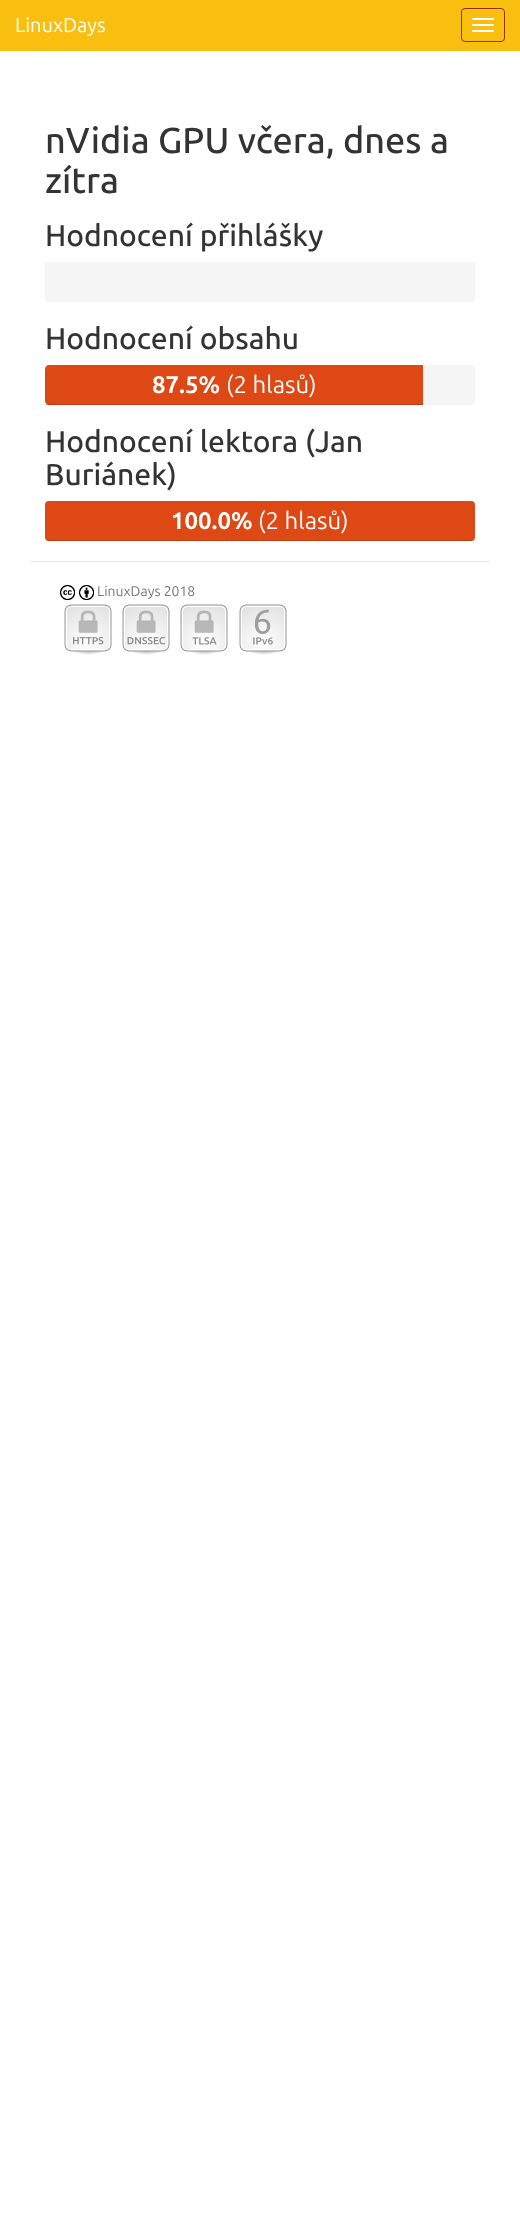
<svg xmlns="http://www.w3.org/2000/svg" width="520" height="2223" viewBox="0 0 520 2223">
  <style>
    .t1 { font: 20px Ubuntu; fill: #fff; }
    .t2 { font: 500 36px Ubuntu; fill: #333; }
    .t3 { font: 500 30px Ubuntu; fill: #333; }
    .t4 { font: bold 24px Ubuntu; fill: #fff; }
    .t5 { font: 24px Ubuntu; fill: #fff; }
    .t6 { font: 14px Ubuntu; fill: #777; }
  </style>
  <defs>
    <clipPath id="clip1"><rect x="45" y="501" width="430" height="40" rx="4"/></clipPath>
  </defs>
  <rect width="100%" height="100%" fill="#fff"/>
  <rect x="0" y="0" width="520" height="51" fill="#f8bf11"/>
  <text x="15" y="32" class="t1">LinuxDays</text>
  <rect x="461.5" y="8.5" width="43" height="33" rx="3.5" fill="none" stroke="#97310e"/>
  <rect x="472" y="18" width="22" height="2" rx="1" fill="#fff"/>
  <rect x="472" y="24" width="22" height="2" rx="1" fill="#fff"/>
  <rect x="472" y="30" width="22" height="2" rx="1" fill="#fff"/>
  <text x="45" y="153" class="t2">nVidia GPU včera, dnes a</text>
  <text x="45" y="193" class="t2">zítra</text>
  <text x="45" y="246" class="t3">Hodnocení přihlášky</text>
  <rect x="45" y="262" width="430" height="40" rx="4" fill="#f5f5f5"/>
  <text x="45" y="349" class="t3">Hodnocení obsahu</text>
  <rect x="45" y="365" width="430" height="40" rx="4" fill="#f5f5f5"/>
  <path d="M49 365H423V405H49C47 405 45 403 45 401V369C45 367 47 365 49 365Z" fill="#dd4814"/>
  <rect x="45" y="404" width="378" height="1" fill="#00000026"/>
  <text x="152" y="393" class="t4">87.5%</text>
  <text x="226" y="393" class="t5">(2 hlasů)</text>
  <text x="45" y="452" class="t3">Hodnocení lektora (Jan</text>
  <text x="45" y="485" class="t3">Buriánek)</text>
  <rect x="45" y="501" width="430" height="40" rx="4" fill="#dd4814"/>
  <g clip-path="url(#clip1)">
    <rect x="45" y="540" width="430" height="1" fill="#00000026"/>
  </g>
  <text x="171" y="529" class="t4">100.0%</text>
  <text x="258" y="529" class="t5">(2 hlasů)</text>
  <rect x="30" y="561" width="460" height="1" fill="#e5e5e5"/>
  <image x="60" y="585" width="15" height="15" href="images/1.png"/>
  <image x="79" y="585" width="15" height="15" href="images/2.png"/>
  <text x="97" y="596" class="t6">LinuxDays 2018</text>
  <image x="64" y="604" width="48" height="51" href="images/3.png"/>
  <image x="122" y="604" width="48" height="51" href="images/4.png"/>
  <image x="180" y="604" width="48" height="51" href="images/5.png"/>
  <image x="239" y="604" width="48" height="51" href="images/6.png"/>
</svg>
